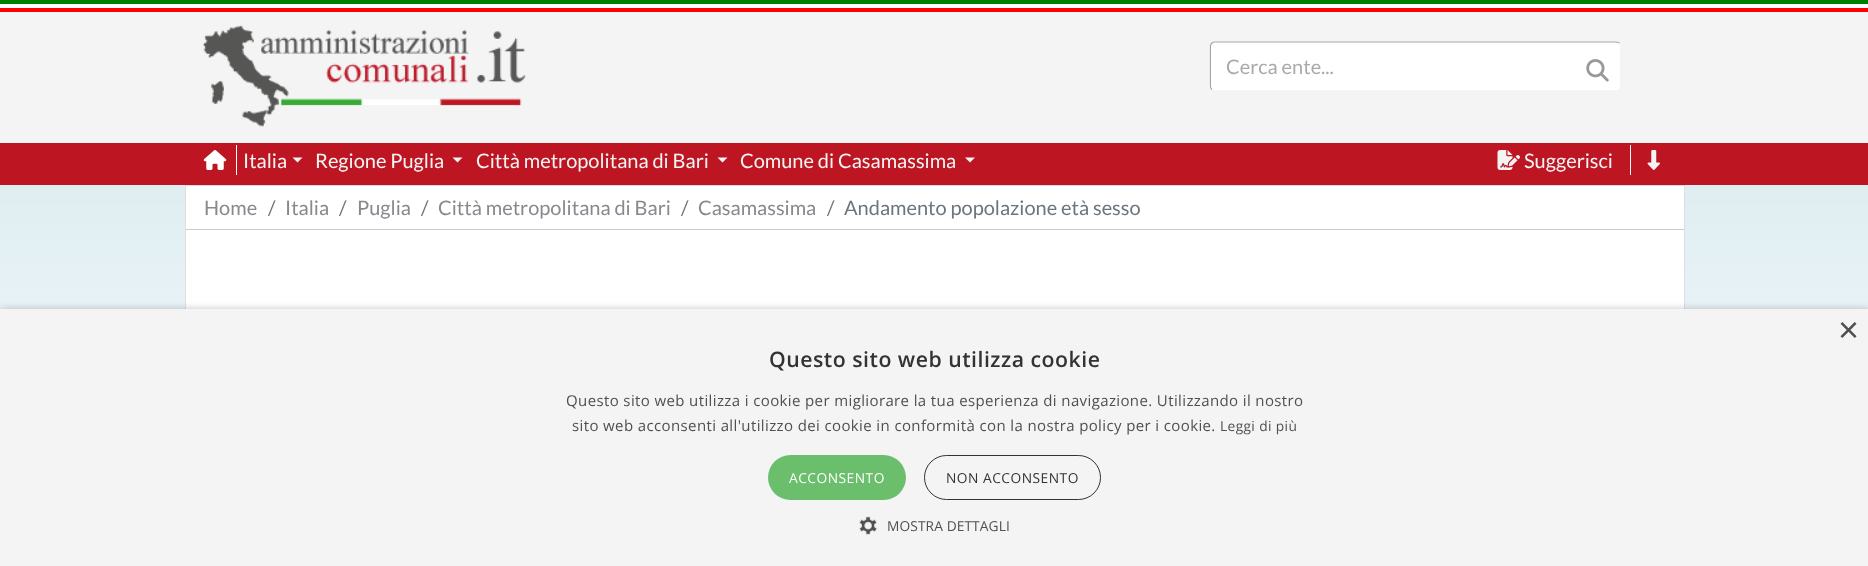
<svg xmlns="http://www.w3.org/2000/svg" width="1868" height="566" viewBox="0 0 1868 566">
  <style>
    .t1 { font: 20px Lato; fill: #aaa; }
    .t2 { font: 20px Lato; fill: #f4f4f4; }
    .t3 { font: 20px Lato; fill: #88888f; }
    .t4 { font: 20px Lato; fill: #6c757d; }
    .t5 { font: 36px Liberation Sans; fill: #505050; }
    .t6 { font: 600 21.25px Open Sans; letter-spacing: 0.5px; fill: #333; }
    .t7 { font: 15px Open Sans; letter-spacing: 0.38px; fill: #505050; }
    .t8 { font: 13.75px Open Sans; letter-spacing: 0.38px; fill: #505050; }
    .t9 { font: 13.75px Open Sans; letter-spacing: 0.5px; fill: #fff; }
    .t10 { font: 13.75px Open Sans; letter-spacing: 0.5px; fill: #333; }
    .t11 { font: 13.75px Open Sans; letter-spacing: 0.1px; fill: #505050; }
  </style>
  <rect width="100%" height="100%" fill="#fff"/>
  <image x="0" y="185" width="1868" height="124" href="images/1.png"/>
  <rect x="0" y="0" width="1868" height="4" fill="#008000"/>
  <rect x="0" y="8" width="1868" height="4" fill="#f00"/>
  <rect x="0" y="12" width="1868" height="131" fill="#f4f4f4"/>
  <image x="203" y="25" width="323" height="102" href="images/2.png"/>
  <rect x="1210" y="41" width="411" height="50" rx="5" fill="#fff"/>
  <path d="M1619.5 43C1620 44 1620.5 45 1620.5 46V86C1620.5 87.5 1620 88.5 1619.5 89.5C1618.5 90 1617.5 90.5 1616 90.5H1215C1214 90.5 1212.5 90 1212 89.5" fill="none" stroke="#f4f4f4" stroke-width="1.2"/>
  <path d="M1212 89.5C1211 88.5 1210.5 87.5 1210.5 86V46C1210.5 45 1211 44 1212 43C1212.5 42.5 1214 42 1215 42H1616C1617.5 42 1618.5 42.5 1619.5 43" fill="none" stroke="#a3a3a3" stroke-width="1.2"/>
  <rect x="1211" y="43" width="375" height="47" rx="5" fill="#fff"/>
  <text x="1226" y="74" class="t1">Cerca ente...</text>
  <image x="1586" y="59" width="23" height="23" href="images/3.png"/>
  <rect x="0" y="143" width="1868" height="42" fill="#bd1521"/>
  <rect x="236" y="145" width="1" height="30" fill="#fff"/>
  <image x="203" y="150" width="24" height="20" href="images/4.png"/>
  <text x="243" y="168" class="t2">Italia</text>
  <path d="M292.5 157.5H302.5L297.5 162.5Z" fill="#f4f4f4"/>
  <text x="315" y="168" class="t2">Regione Puglia</text>
  <path d="M452.5 157.5H462.5L457.5 162.5Z" fill="#f4f4f4"/>
  <text x="476" y="168" class="t2">Città metropolitana di Bari</text>
  <path d="M717.5 157.5H727.5L722.5 162.5Z" fill="#f4f4f4"/>
  <text x="740" y="168" class="t2">Comune di Casamassima</text>
  <path d="M965 157.5H975L970 162.5Z" fill="#f4f4f4"/>
  <image x="1497" y="150" width="23" height="20" href="images/5.png"/>
  <text x="1524" y="168" class="t2">Suggerisci</text>
  <rect x="1630" y="145" width="1" height="30" fill="#fff"/>
  <image x="1647" y="150" width="13" height="20" href="images/6.png"/>
  <rect x="186" y="186" width="1498" height="123" fill="#fff"/>
  <rect x="185.5" y="185.5" width="1499" height="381" fill="none" stroke="#dedede"/>
  <text x="204" y="215" class="t3">Home</text>
  <text x="268" y="215" class="t4">/</text>
  <text x="285" y="215" class="t3">Italia</text>
  <text x="339" y="215" class="t4">/</text>
  <text x="357" y="215" class="t3">Puglia</text>
  <text x="421" y="215" class="t4">/</text>
  <text x="438" y="215" class="t3">Città metropolitana di Bari</text>
  <text x="681" y="215" class="t4">/</text>
  <text x="698" y="215" class="t3">Casamassima</text>
  <text x="827" y="215" class="t4">/</text>
  <text x="844" y="215" class="t4">Andamento popolazione età sesso</text>
  <rect x="186" y="229" width="1498" height="1" fill="#ccc"/>
  <rect x="1" y="311" width="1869" height="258" fill="#00000059" filter="blur(5px)"/>
  <rect x="0" y="309" width="1868" height="257" fill="#f4f4f4"/>
  <text x="1838" y="342" class="t5">×</text>
  <text x="769" y="367" class="t6">Questo sito web utilizza cookie</text>
  <text x="566" y="406" class="t7">Questo sito web utilizza i cookie per migliorare la tua esperienza di navigazione. Utilizzando il nostro</text>
  <text x="572" y="431" class="t7">sito web acconsenti all'utilizzo dei cookie in conformità con la nostra policy per i cookie.</text>
  <text x="1220" y="431" class="t8">Leggi di più</text>
  <rect x="768" y="455" width="138" height="45" rx="22.5" fill="#6bbe6b"/>
  <text x="789" y="483" class="t9">ACCONSENTO</text>
  <rect x="924.5" y="455.5" width="176" height="44" rx="22" fill="none" stroke="#333"/>
  <text x="946" y="483" class="t10">NON ACCONSENTO</text>
  <image x="859" y="516" width="19" height="19" href="images/7.png"/>
  <text x="887" y="531" class="t11">MOSTRA DETTAGLI</text>
</svg>
